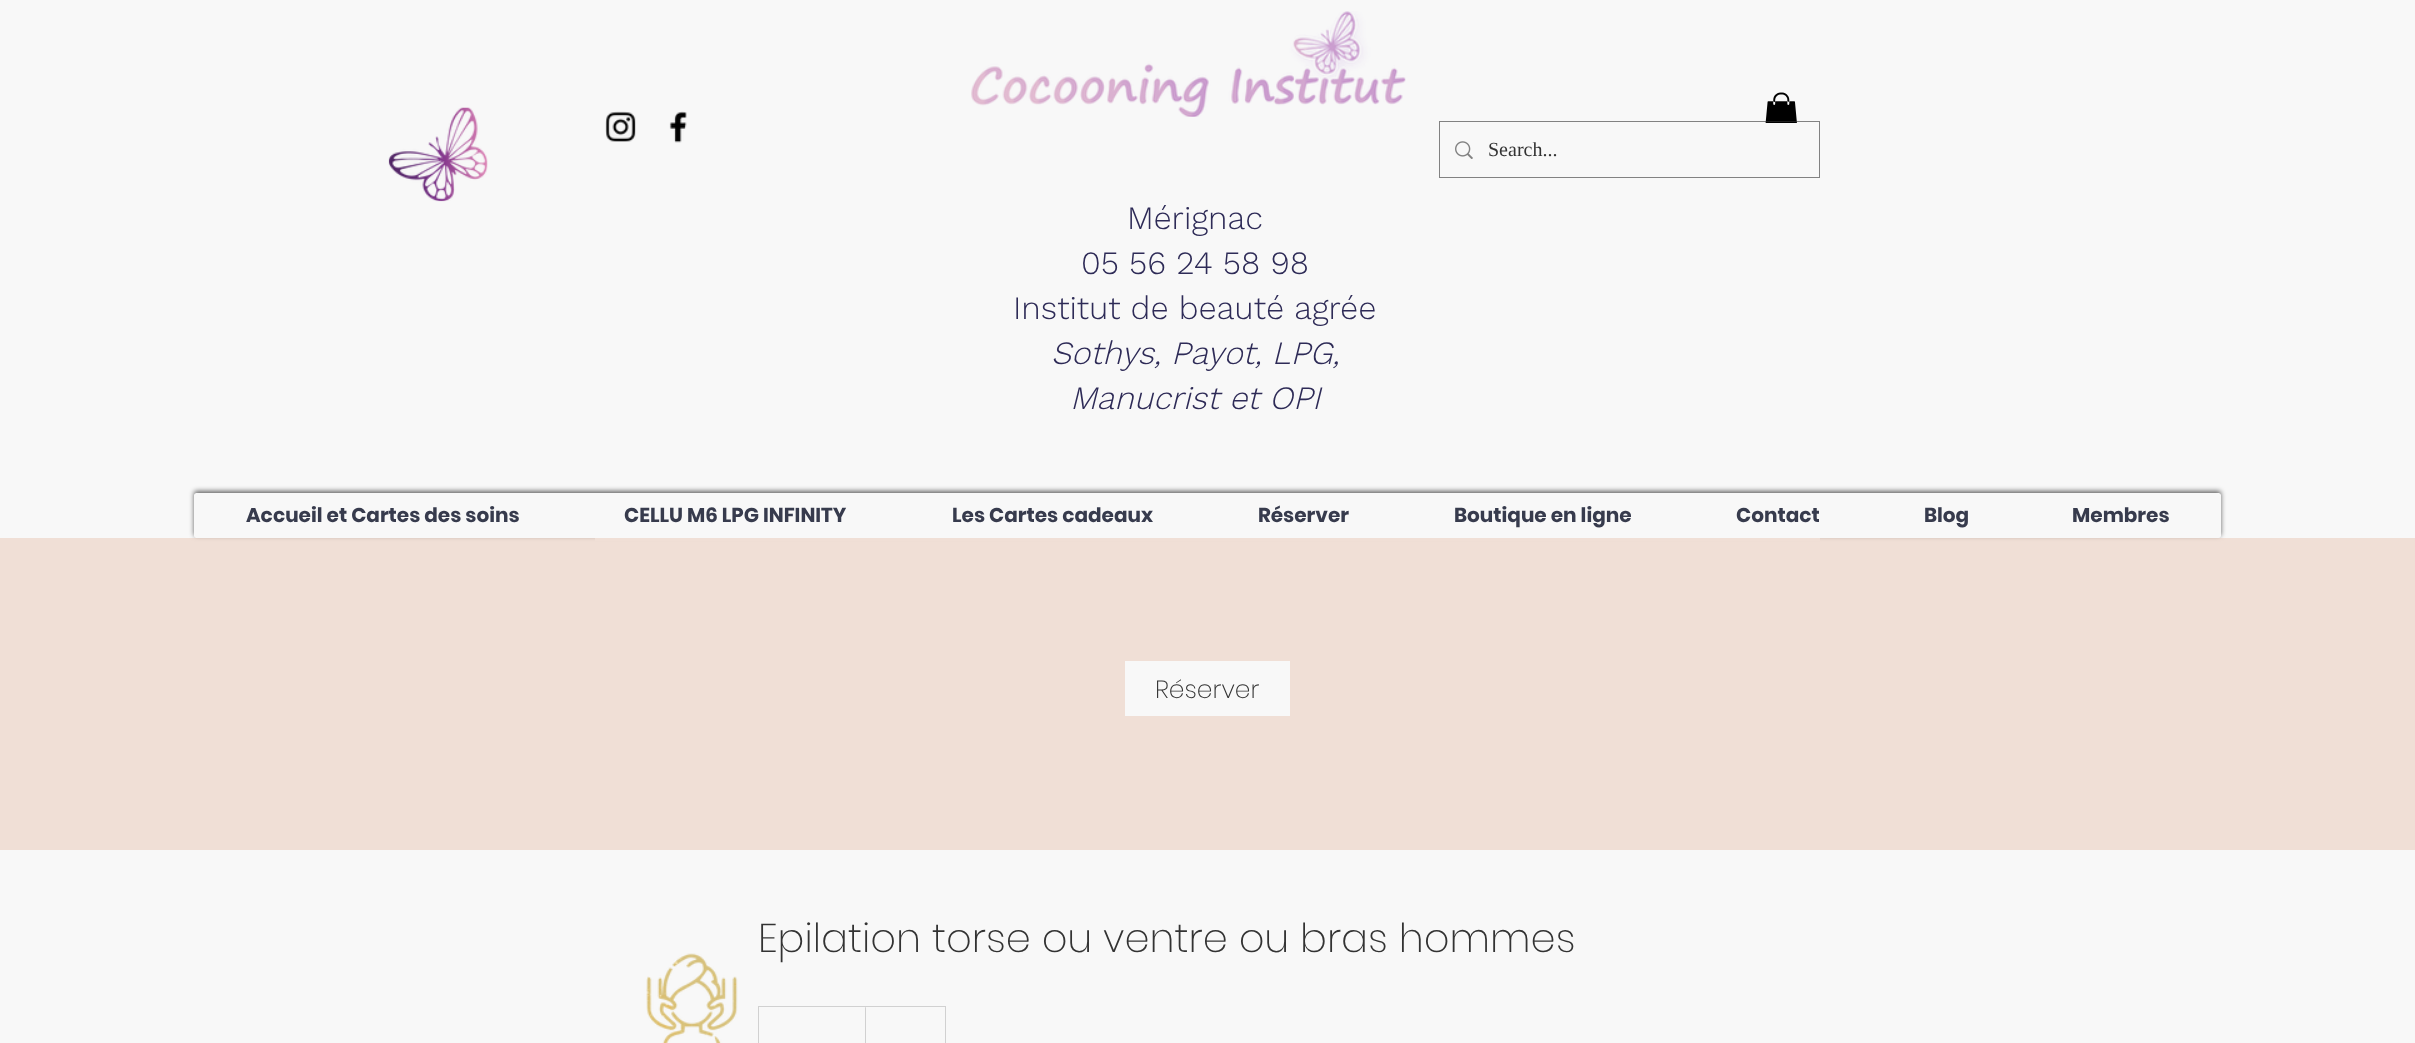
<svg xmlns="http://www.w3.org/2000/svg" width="2415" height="1043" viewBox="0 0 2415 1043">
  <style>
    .t1 { font: 20px Liberation Serif; fill: #333; }
    .t2 { font: 300 32.5px Work Sans; fill: #2e2b57; }
    .t3 { font: italic 300 32.5px Work Sans; fill: #2e2b57; }
    .t4 { font: bold 20px Poppins; fill: #373b4d; }
    .t5 { font: 200 25px Poppins; fill: #333; }
    .t6 { font: 200 40px Poppins; fill: #333; }
  </style>
  <defs>
    <clipPath id="clip1"><path d="M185 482H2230V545H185ZM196.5 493H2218.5C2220 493 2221 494 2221 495.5V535.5C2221 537 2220 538 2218.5 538H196.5C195 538 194 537 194 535.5V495.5C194 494 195 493 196.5 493Z" clip-rule="evenodd"/></clipPath>
  </defs>
  <rect width="100%" height="100%" fill="#f8f8f8"/>
  <image x="388" y="107" width="100" height="95" href="images/1.png"/>
  <image x="605" y="111" width="31" height="31" href="images/2.png"/>
  <image x="669" y="111" width="18" height="32" href="images/3.png"/>
  <image x="971" y="11" width="435" height="106" href="images/4.png"/>
  <image x="1765" y="92" width="32" height="31" href="images/5.png"/>
  <rect x="1439.5" y="121.5" width="380" height="56" fill="none" stroke="#33333399"/>
  <image x="1455" y="141" width="18" height="18" href="images/6.png"/>
  <text x="1488" y="156" class="t1">Search...</text>
  <text x="1127" y="229" class="t2">Mérignac</text>
  <text x="1081" y="274" class="t2">05 56 24 58 98</text>
  <text x="1013" y="319" class="t2">Institut de beauté agrée</text>
  <text x="1051" y="364" class="t3">Sothys, Payot, LPG,</text>
  <text x="1070" y="409" class="t3">Manucrist et OPI</text>
  <g clip-path="url(#clip1)">
    <rect x="194" y="491" width="2027" height="45" rx="2.5" fill="#00000099" filter="blur(2.5px)"/>
  </g>
  <text x="246" y="522" class="t4">Accueil et Cartes des soins</text>
  <text x="624" y="522" class="t4">CELLU M6 LPG INFINITY</text>
  <text x="952" y="522" class="t4">Les Cartes cadeaux</text>
  <text x="1258" y="522" class="t4">Réserver</text>
  <text x="1454" y="522" class="t4">Boutique en ligne</text>
  <text x="1736" y="522" class="t4">Contact</text>
  <text x="1924" y="522" class="t4">Blog</text>
  <text x="2072" y="522" class="t4">Membres</text>
  <rect x="595" y="538" width="1225" height="3" fill="#f8f8f8"/>
  <rect x="0" y="538" width="2415" height="312" fill="#e6bfaa70"/>
  <rect x="1125" y="661" width="165" height="55" fill="#f8f8f8"/>
  <text x="1155" y="698" class="t5">Réserver</text>
  <text x="758" y="952" class="t6">Epilation torse ou ventre ou bras hommes</text>
  <rect x="758.5" y="1006.5" width="187" height="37" fill="none" stroke="#d1d1d1"/>
  <path d="M865 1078V1006L866 1008V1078Z" fill="#d1d1d1"/>
  <image x="646" y="953" width="92" height="90" href="images/7.png"/>
</svg>
